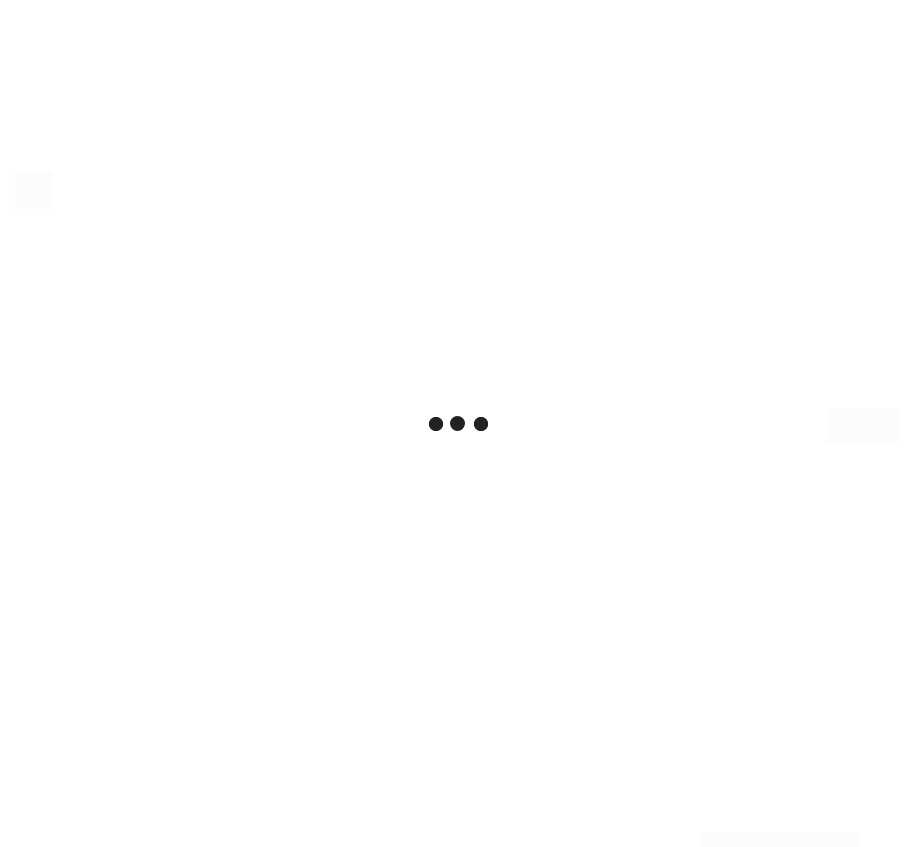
<svg xmlns="http://www.w3.org/2000/svg" width="915" height="847" viewBox="0 0 915 847">
  <defs>
    <radialGradient id="g1" gradientUnits="userSpaceOnUse" cx="481" cy="424" r="7.5"><stop offset="0.9" stop-color="#202224"/><stop offset="1" stop-color="#fff"/></radialGradient>
    <radialGradient id="g2" gradientUnits="userSpaceOnUse" cx="436" cy="424" r="7.5"><stop offset="0.9" stop-color="#202224"/><stop offset="1" stop-color="#fff"/></radialGradient>
  </defs>
  <rect width="100%" height="100%" fill="#fff"/>
  <rect x="15" y="171" width="38" height="38" fill="#fcfcfc"/>
  <rect x="474" y="417" width="14" height="14" fill="url(#g1)"/>
  <rect x="429" y="417" width="14" height="14" fill="url(#g2)"/>
  <circle cx="457.5" cy="423.5" r="7.5" fill="#202224"/>
  <rect x="827" y="409" width="73" height="35" fill="#fcfcfc"/>
  <rect x="700" y="833" width="160" height="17" rx="3" fill="#fcfcfc"/>
</svg>
